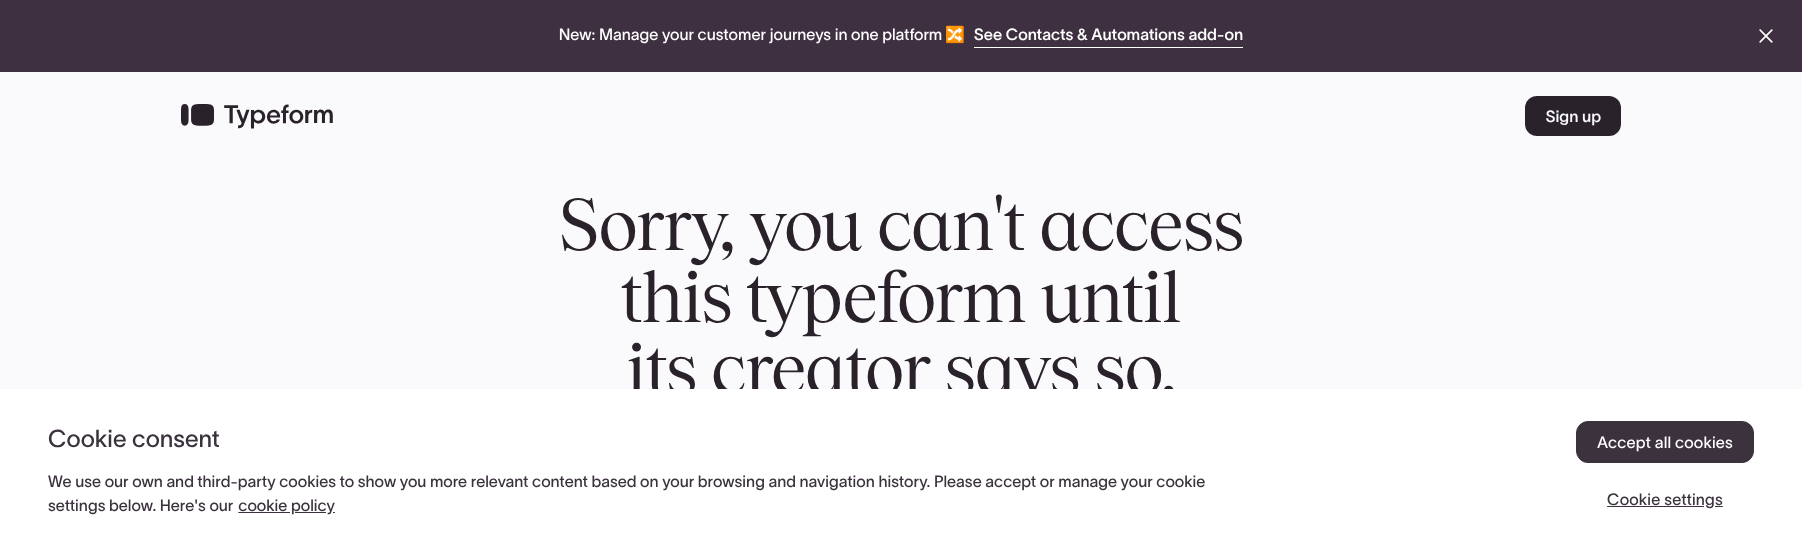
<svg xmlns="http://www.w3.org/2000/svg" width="1802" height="551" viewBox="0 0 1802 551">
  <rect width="100%" height="100%" fill="#fff"/>
  <image x="0" y="0" width="1802" height="551" href="images/1.png"/>
</svg>
